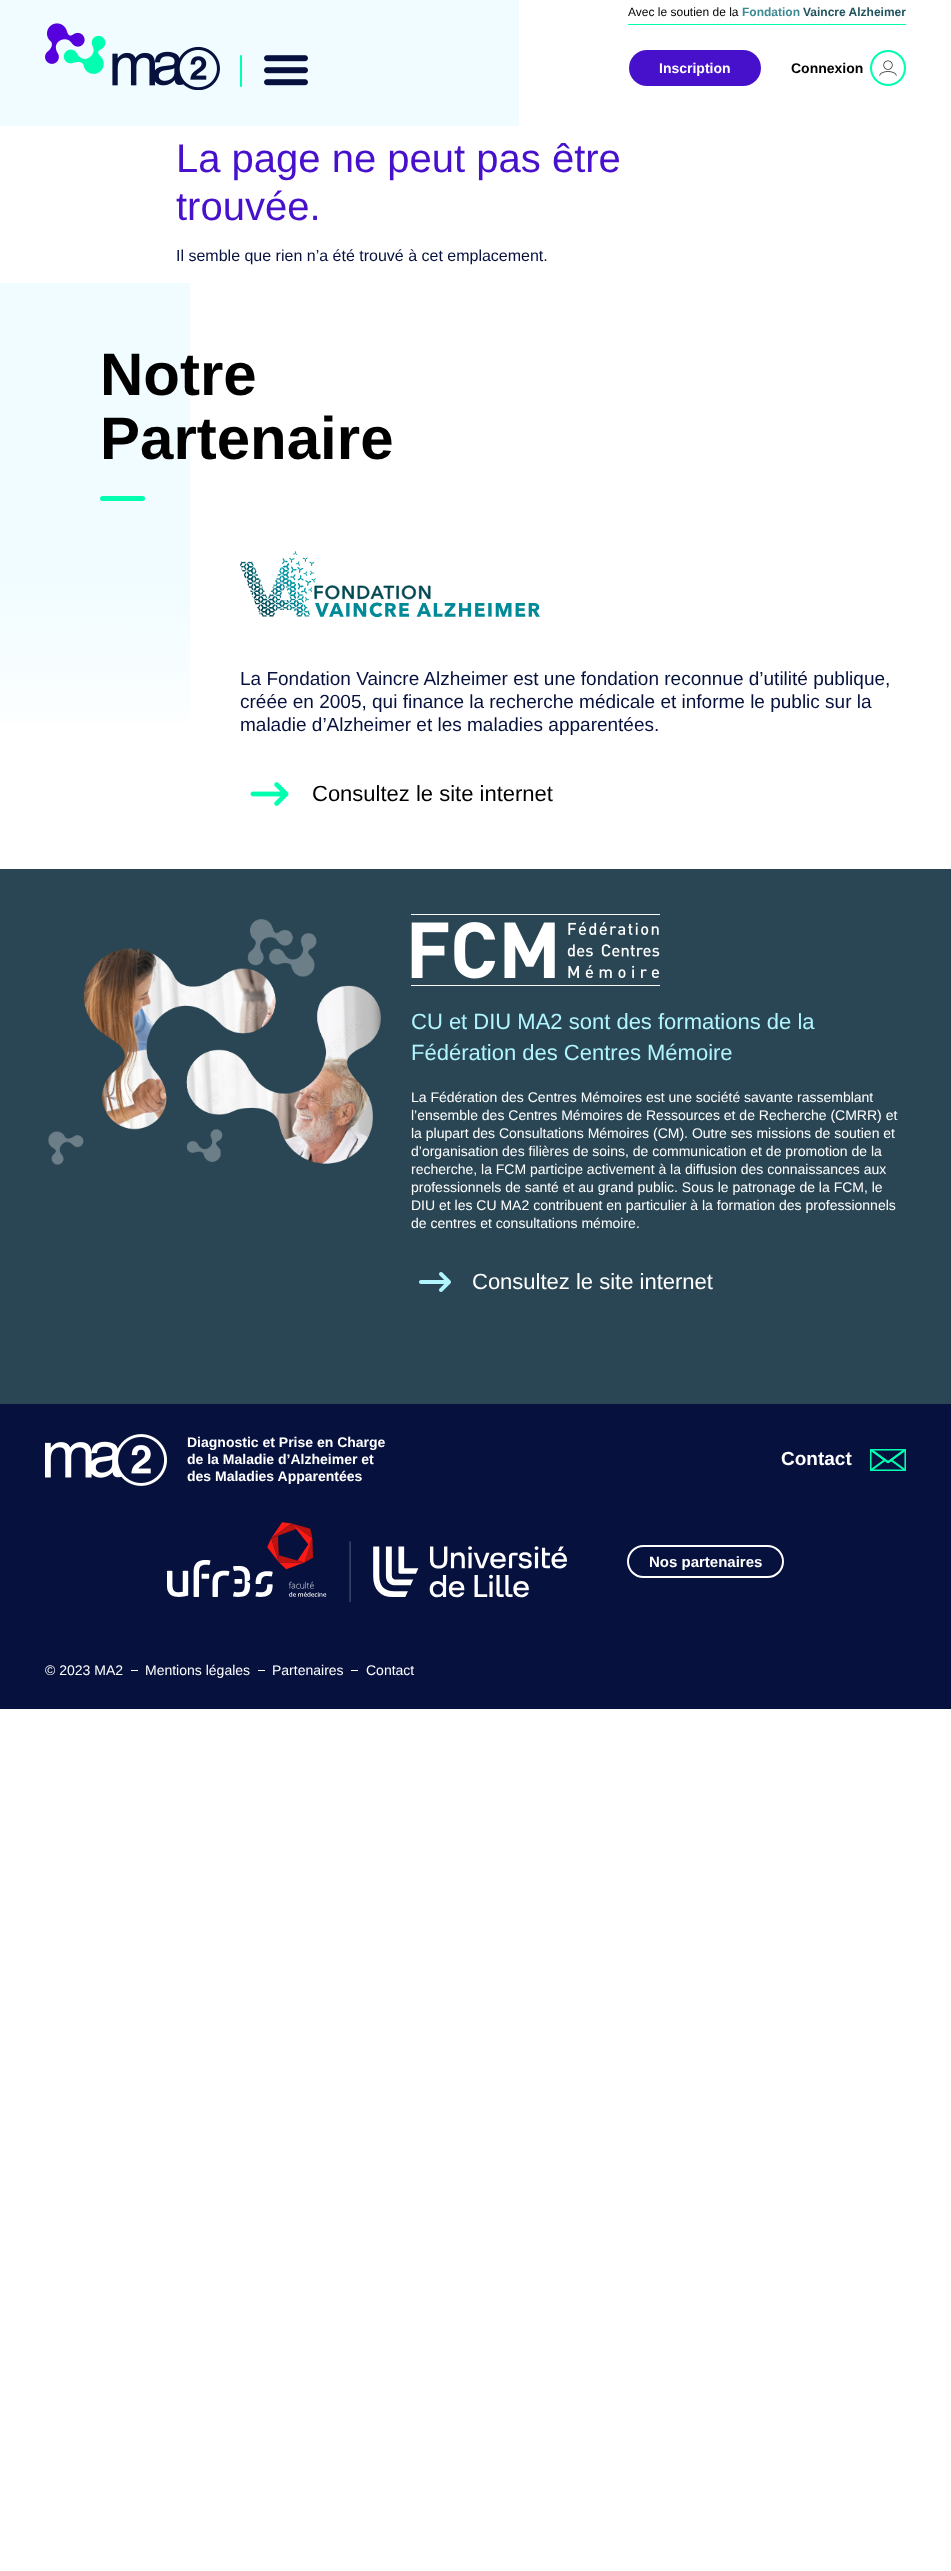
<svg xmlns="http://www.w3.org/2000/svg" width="951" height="2571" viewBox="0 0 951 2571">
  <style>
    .t1 { font: 12px Liberation Sans; fill: #000; }
    .t2 { font: bold 12px Liberation Sans; fill: #3d8a93; }
    .t3 { font: bold 12px Liberation Sans; fill: #21545e; }
    .t4 { font: bold 14px Liberation Sans; fill: #fff; }
    .t5 { font: bold 14px Liberation Sans; fill: #000; }
    .t6 { font: 40px Liberation Sans; fill: #4711cc; }
    .t7 { font: 16px Liberation Sans; fill: #06113e; }
    .t8 { font: bold 60px Liberation Sans; fill: #000; }
    .t9 { font: 19px Liberation Sans; fill: #06113e; }
    .t10 { font: 22px Liberation Sans; fill: #000; }
    .t11 { font: 22px Liberation Sans; fill: #b1f5ff; }
    .t12 { font: 14px Liberation Sans; fill: #fff; }
    .t13 { font: 22px Liberation Sans; fill: #fff; }
    .t14 { font: bold 19px Liberation Sans; fill: #fff; }
    .t15 { font: bold 15px Liberation Sans; fill: #fff; }
  </style>
  <defs>
    <linearGradient id="g1" gradientUnits="userSpaceOnUse" x1="475" y1="283" x2="476" y2="869"><stop offset="0.5" stop-color="#f0fcff"/><stop offset="0.8" stop-color="#fff"/></linearGradient>
  </defs>
  <rect width="100%" height="100%" fill="#fff"/>
  <rect x="0" y="0" width="519" height="126" fill="#f0fcff"/>
  <image x="45" y="23" width="175" height="67" href="images/1.png"/>
  <rect x="240" y="55" width="2" height="32" rx="1" fill="#01ffb0"/>
  <image x="264" y="55" width="44" height="31" href="images/2.png"/>
  <rect x="628" y="24" width="278" height="1" fill="#01ffb0"/>
  <text x="628" y="16" class="t1">Avec le soutien de la</text>
  <text x="742" y="16" class="t2">Fondation</text>
  <text x="803" y="16" class="t3">Vaincre Alzheimer</text>
  <rect x="629" y="50" width="132" height="36" rx="18" fill="#4711cc"/>
  <text x="659" y="73" class="t4">Inscription</text>
  <text x="791" y="73" class="t5">Connexion</text>
  <image x="870" y="50" width="36" height="36" href="images/3.png"/>
  <text x="176" y="172" class="t6">La page ne peut pas être</text>
  <text x="176" y="220" class="t6">trouvée.</text>
  <text x="176" y="261" class="t7">Il semble que rien n’a été trouvé à cet emplacement.</text>
  <rect x="0" y="283" width="190" height="440" fill="url(#g1)"/>
  <text x="100" y="395" class="t8">Notre</text>
  <text x="100" y="459" class="t8">Partenaire</text>
  <rect x="100" y="496" width="45" height="5" rx="2.5" fill="#01ffb0"/>
  <image x="240" y="551" width="300" height="66" href="images/4.png"/>
  <text x="240" y="685" class="t9">La Fondation Vaincre Alzheimer est une fondation reconnue d’utilité publique,</text>
  <text x="240" y="708" class="t9">créée en 2005, qui finance la recherche médicale et informe le public sur la</text>
  <text x="240" y="731" class="t9">maladie d’Alzheimer et les maladies apparentées.</text>
  <image x="250" y="782" width="39" height="24" href="images/5.png"/>
  <text x="312" y="801" class="t10">Consultez le site internet</text>
  <rect x="0" y="869" width="951" height="535" fill="#2a4654"/>
  <image x="48" y="919" width="333" height="246" href="images/6.png"/>
  <image x="411" y="914" width="249" height="72" href="images/7.png"/>
  <text x="411" y="1029" class="t11">CU et DIU MA2 sont des formations de la</text>
  <text x="411" y="1060" class="t11">Fédération des Centres Mémoire</text>
  <text x="411" y="1102" class="t12">La Fédération des Centres Mémoires est une société savante rassemblant</text>
  <text x="411" y="1120" class="t12">l’ensemble des Centres Mémoires de Ressources et de Recherche (CMRR) et</text>
  <text x="411" y="1138" class="t12">la plupart des Consultations Mémoires (CM). Outre ses missions de soutien et</text>
  <text x="411" y="1156" class="t12">d’organisation des filières de soins, de communication et de promotion de la</text>
  <text x="411" y="1174" class="t12">recherche, la FCM participe activement à la diffusion des connaissances aux</text>
  <text x="411" y="1192" class="t12">professionnels de santé et au grand public. Sous le patronage de la FCM, le</text>
  <text x="411" y="1210" class="t12">DIU et les CU MA2 contribuent en particulier à la formation des professionnels</text>
  <text x="411" y="1228" class="t12">de centres et consultations mémoire.</text>
  <image x="419" y="1272" width="32" height="20" href="images/8.png"/>
  <text x="472" y="1289" class="t13">Consultez le site internet</text>
  <rect x="0" y="1404" width="951" height="305" fill="#06113e"/>
  <image x="45" y="1434" width="122" height="52" href="images/9.png"/>
  <text x="187" y="1447" class="t4">Diagnostic et Prise en Charge</text>
  <text x="187" y="1464" class="t4">de la Maladie d’Alzheimer et</text>
  <text x="187" y="1481" class="t4">des Maladies Apparentées</text>
  <text x="781" y="1465" class="t14">Contact</text>
  <image x="870" y="1449" width="36" height="22" href="images/10.png"/>
  <image x="167" y="1522" width="400" height="80" href="images/11.png"/>
  <rect x="628" y="1546" width="155" height="31" rx="15.5" fill="none" stroke="#fff" stroke-width="2"/>
  <text x="649" y="1567" class="t15">Nos partenaires</text>
  <text x="45" y="1675" class="t12">© 2023 MA2</text>
  <rect x="131" y="1670" width="7" height="1" fill="#fff"/>
  <text x="145" y="1675" class="t12">Mentions légales</text>
  <rect x="258" y="1670" width="7" height="1" fill="#fff"/>
  <text x="272" y="1675" class="t12">Partenaires</text>
  <rect x="351" y="1670" width="7" height="1" fill="#fff"/>
  <text x="366" y="1675" class="t12">Contact</text>
</svg>
